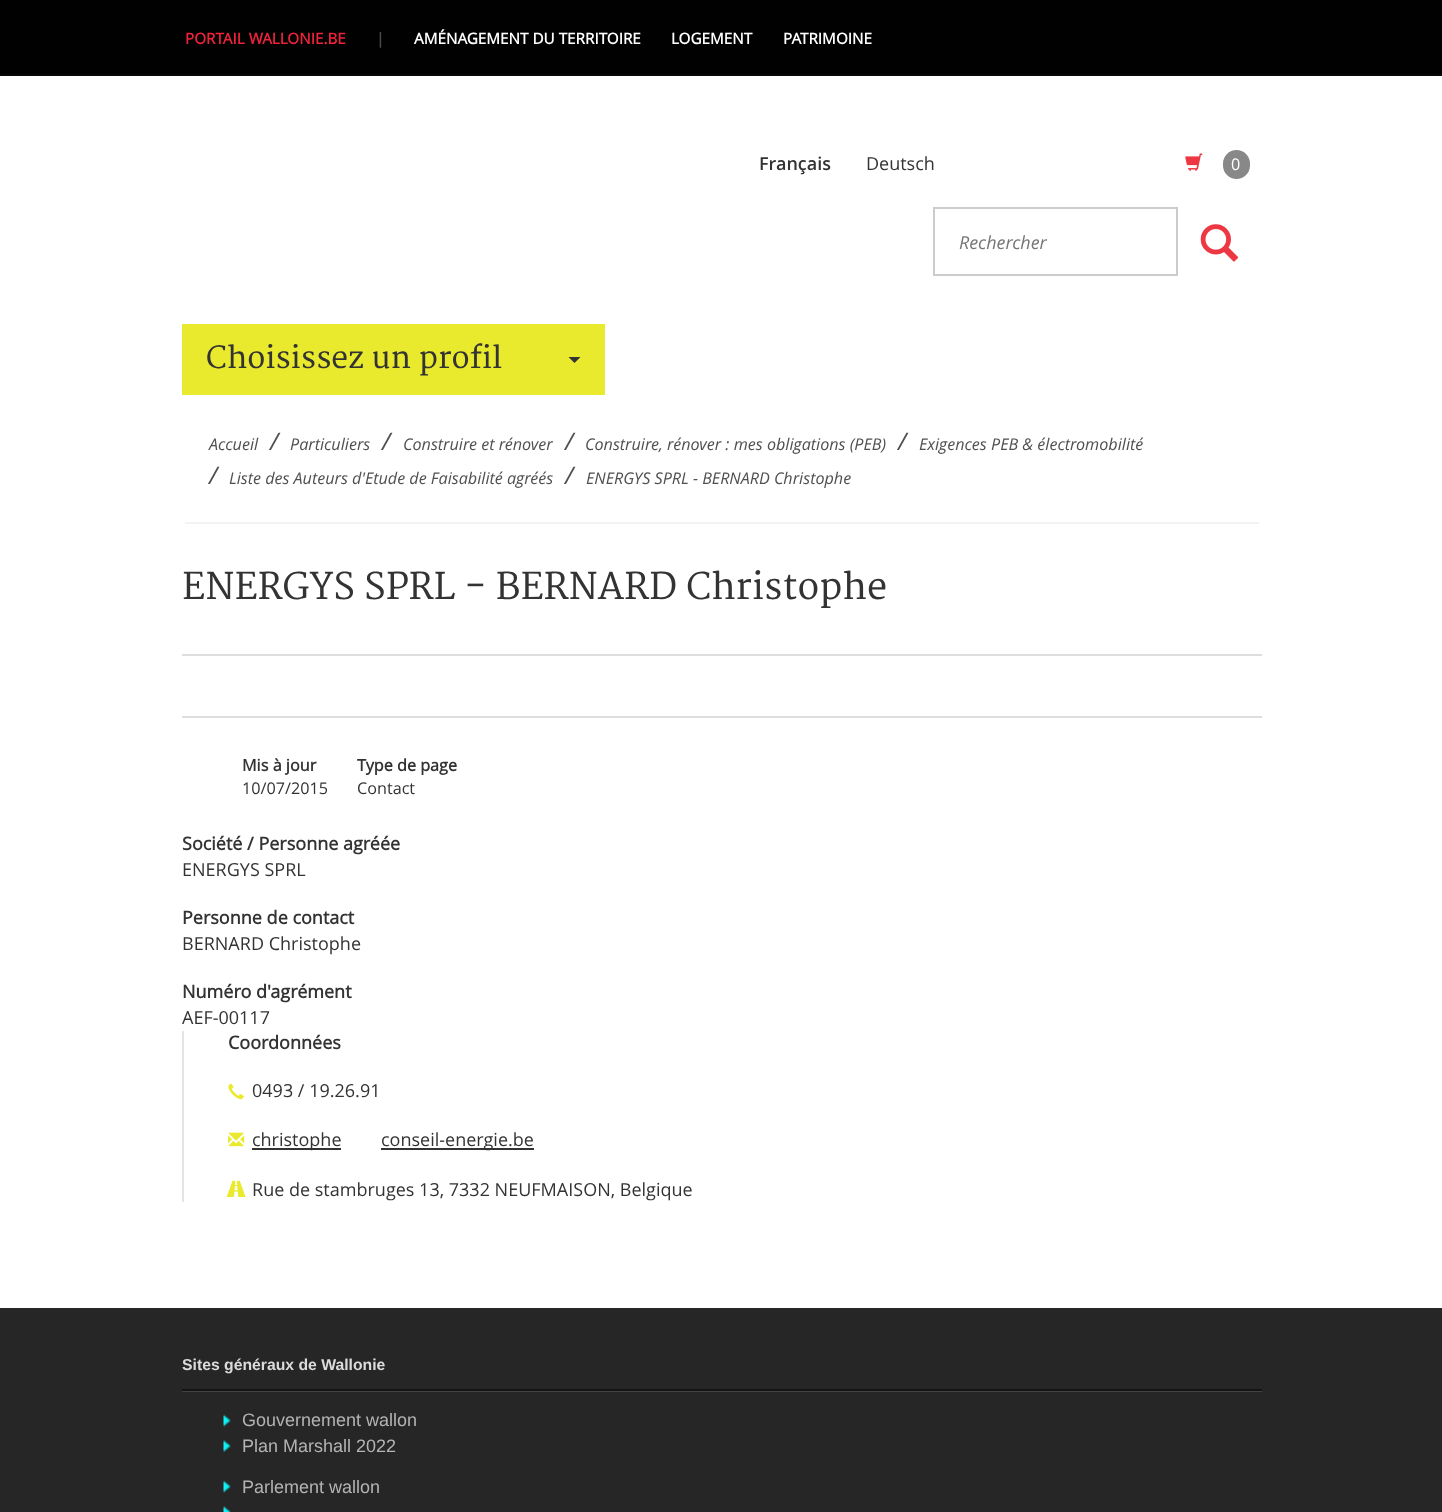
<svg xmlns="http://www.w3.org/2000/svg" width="1442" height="1512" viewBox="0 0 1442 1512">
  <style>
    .t1 { font: bold 15.25px Open Sans; fill: #ee233a; }
    .t2 { font: bold 15.25px Open Sans; fill: #4a4a4a; }
    .t3 { font: bold 15.25px Open Sans; fill: #fff; }
    .t4 { font: 600 18px Open Sans; fill: #333; }
    .t5 { font: 18px Open Sans; fill: #333; }
    .t6 { font: 16.2px Open Sans; fill: #fff; }
    .t7 { font: italic 18px Open Sans; fill: #777; }
    .t8 { font: 30px Merriweather; fill: #333; }
    .t9 { font: italic 16.2px Open Sans; fill: #505050; }
    .t10 { font: italic 24px Open Sans; fill: #505050; }
    .t11 { font: 36px Merriweather; fill: #333; }
    .t12 { font: bold 16.2px Open Sans; fill: #333; }
    .t13 { font: 16.2px Open Sans; fill: #333; }
    .t14 { font: bold 18px Open Sans; fill: #333; }
    .t15 { font: bold 15.75px Liberation Sans; fill: #dbdbdb; }
    .t16 { font: 18px Liberation Sans; fill: #b3b3b3; }
  </style>
  <rect width="100%" height="100%" fill="#fff"/>
  <rect x="0" y="0" width="1442" height="74" fill="#010101"/>
  <rect x="0" y="74" width="1442" height="2" fill="#080808"/>
  <text x="185" y="44" class="t1">PORTAIL WALLONIE.BE</text>
  <text x="376" y="44" class="t2">|</text>
  <text x="414" y="44" class="t3">AMÉNAGEMENT DU TERRITOIRE</text>
  <text x="671" y="44" class="t3">LOGEMENT</text>
  <text x="783" y="44" class="t3">PATRIMOINE</text>
  <text x="759" y="170" class="t4">Français</text>
  <text x="866" y="170" class="t5">Deutsch</text>
  <image x="1185" y="153" width="18" height="18" href="images/1.png"/>
  <rect x="1223" y="150" width="27" height="29" rx="13.5" fill="#888"/>
  <text x="1231" y="170" class="t6">0</text>
  <rect x="934" y="208" width="243" height="67" fill="none" stroke="#ccc" stroke-width="2"/>
  <text x="959" y="249" class="t7">Rechercher</text>
  <image x="1200" y="224" width="39" height="38" href="images/2.png"/>
  <rect x="182" y="324" width="423" height="71" fill="#e9ea2d"/>
  <text x="206" y="368" class="t8">Choisissez un profil</text>
  <path d="M568.5 357H580.5L574.5 363Z" fill="#333"/>
  <rect x="185" y="522" width="1074" height="2" fill="#f3f3f3"/>
  <text x="209" y="450" class="t9">Accueil</text>
  <text x="270" y="450" class="t10">/</text>
  <text x="290" y="450" class="t9">Particuliers</text>
  <text x="382" y="450" class="t10">/</text>
  <text x="403" y="450" class="t9">Construire et rénover</text>
  <text x="565" y="450" class="t10">/</text>
  <text x="585" y="450" class="t9">Construire, rénover : mes obligations (PEB)</text>
  <text x="898" y="450" class="t10">/</text>
  <text x="919" y="450" class="t9">Exigences PEB &amp; électromobilité</text>
  <text x="209" y="484" class="t10">/</text>
  <text x="229" y="484" class="t9">Liste des Auteurs d'Etude de Faisabilité agréés</text>
  <text x="565" y="484" class="t10">/</text>
  <text x="586" y="484" class="t9">ENERGYS SPRL - BERNARD Christophe</text>
  <text x="182" y="599" class="t11">ENERGYS SPRL - BERNARD Christophe</text>
  <rect x="182" y="654" width="1080" height="2" fill="#dcdddd"/>
  <rect x="182" y="716" width="1080" height="2" fill="#dcdddd"/>
  <text x="242" y="771" class="t12">Mis à jour</text>
  <text x="242" y="794" class="t13">10/07/2015</text>
  <text x="357" y="771" class="t12">Type de page</text>
  <text x="357" y="794" class="t13">Contact</text>
  <text x="182" y="850" class="t14">Société / Personne agréée</text>
  <text x="182" y="876" class="t5">ENERGYS SPRL</text>
  <text x="182" y="924" class="t14">Personne de contact</text>
  <text x="182" y="950" class="t5">BERNARD Christophe</text>
  <text x="182" y="998" class="t14">Numéro d'agrément</text>
  <text x="182" y="1024" class="t5">AEF-00117</text>
  <rect x="182" y="1031" width="2" height="171" fill="#e5e3e3"/>
  <text x="228" y="1049" class="t14">Coordonnées</text>
  <image x="228" y="1083" width="16" height="17" href="images/3.png"/>
  <text x="252" y="1097" class="t5">0493 / 19.26.91</text>
  <image x="228" y="1132" width="17" height="15" href="images/4.png"/>
  <rect x="252" y="1148" width="89" height="2" fill="#333"/>
  <text x="252" y="1146" class="t5">christophe</text>
  <rect x="381" y="1148" width="153" height="2" fill="#333"/>
  <text x="381" y="1146" class="t5">conseil-energie.be</text>
  <image x="226" y="1180" width="20" height="17" href="images/5.png"/>
  <text x="252" y="1196" class="t5">Rue de stambruges 13, 7332 NEUFMAISON, Belgique</text>
  <rect x="0" y="1308" width="1442" height="204" fill="#262626"/>
  <path d="M182 1390V1392H1262V1310V1390Z" fill="#434343"/>
  <rect x="182" y="1389" width="1080" height="2" fill="#141414"/>
  <text x="182" y="1370" class="t15">Sites généraux de Wallonie</text>
  <image x="223" y="1414" width="8" height="13" href="images/6.png"/>
  <text x="242" y="1426" class="t16">Gouvernement wallon</text>
  <image x="223" y="1440" width="8" height="12" href="images/7.png"/>
  <text x="242" y="1452" class="t16">Plan Marshall 2022</text>
  <image x="223" y="1480" width="8" height="13" href="images/6.png"/>
  <text x="242" y="1493" class="t16">Parlement wallon</text>
  <image x="223" y="1506" width="8" height="6" href="images/8.png"/>
</svg>
